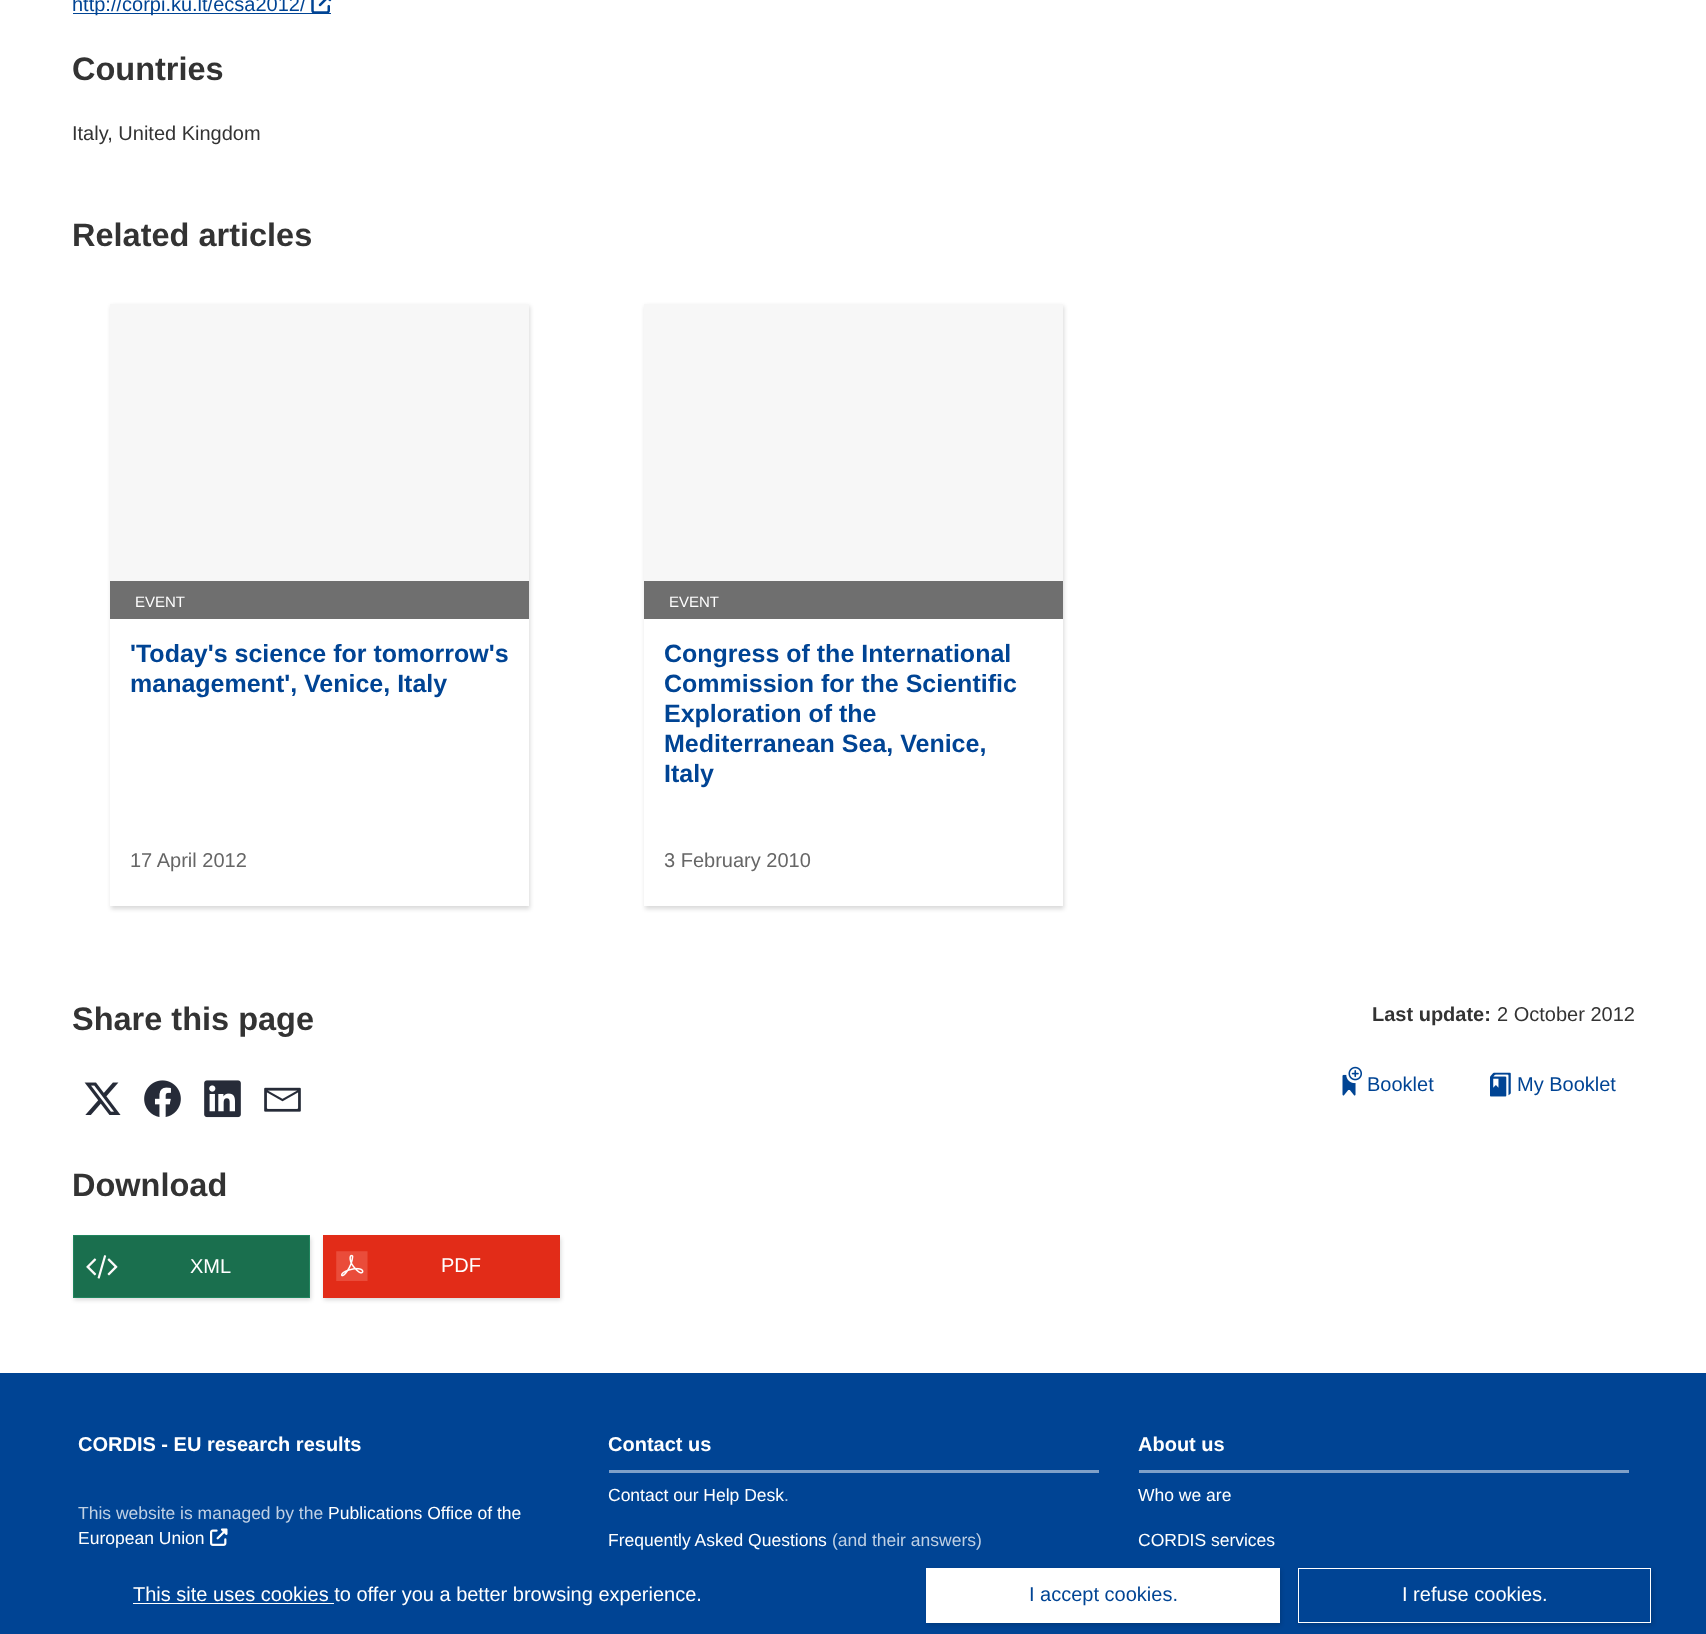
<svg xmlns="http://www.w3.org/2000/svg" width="1706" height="1634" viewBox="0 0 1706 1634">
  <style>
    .t1 { font: 20px Liberation Sans; fill: #004494; }
    .t2 { font: bold 32.5px Liberation Sans; fill: #333; }
    .t3 { font: 20px Liberation Sans; fill: #333; }
    .t4 { font: 15px Liberation Sans; fill: #fff; }
    .t5 { font: bold 25px Liberation Sans; fill: #004494; }
    .t6 { font: 20px Liberation Sans; fill: #666; }
    .t7 { font: 20px Liberation Sans; fill: #fff; }
    .t8 { font: bold 20px Liberation Sans; fill: #333; }
    .t9 { font: bold 20px Liberation Sans; fill: #fff; }
    .t10 { font: 17.5px Liberation Sans; fill: #bfd0e4; }
    .t11 { font: 17.5px Liberation Sans; fill: #fff; }
  </style>
  <rect width="100%" height="100%" fill="#fff"/>
  <rect x="73" y="13" width="258" height="1" fill="#004494"/>
  <text x="72" y="11" class="t1">http://corpi.ku.lt/ecsa2012/</text>
  <image x="311" y="0" width="21" height="13" href="images/1.png"/>
  <text x="72" y="80" class="t2">Countries</text>
  <text x="72" y="140" class="t3">Italy, United Kingdom</text>
  <text x="72" y="246" class="t2">Related articles</text>
  <rect x="111" y="306" width="419" height="603" fill="#00000026" filter="blur(2px)"/>
  <rect x="110" y="619" width="419" height="287" fill="#fff"/>
  <rect x="110" y="304" width="419" height="277" fill="#f7f7f7"/>
  <rect x="110" y="581" width="419" height="38" fill="#6f6f6f"/>
  <text x="135" y="607" class="t4">EVENT</text>
  <text x="130" y="662" class="t5">'Today's science for tomorrow's</text>
  <text x="130" y="692" class="t5">management', Venice, Italy</text>
  <text x="130" y="867" class="t6">17 April 2012</text>
  <rect x="645" y="306" width="419" height="603" fill="#00000026" filter="blur(2px)"/>
  <rect x="644" y="619" width="419" height="287" fill="#fff"/>
  <rect x="644" y="304" width="419" height="277" fill="#f7f7f7"/>
  <rect x="644" y="581" width="419" height="38" fill="#6f6f6f"/>
  <text x="669" y="607" class="t4">EVENT</text>
  <text x="664" y="662" class="t5">Congress of the International</text>
  <text x="664" y="692" class="t5">Commission for the Scientific</text>
  <text x="664" y="722" class="t5">Exploration of the</text>
  <text x="664" y="752" class="t5">Mediterranean Sea, Venice,</text>
  <text x="664" y="782" class="t5">Italy</text>
  <text x="664" y="867" class="t6">3 February 2010</text>
  <text x="72" y="1030" class="t2">Share this page</text>
  <image x="84" y="1082" width="37" height="33" href="images/2.png"/>
  <image x="144" y="1080" width="37" height="37" href="images/3.png"/>
  <image x="204" y="1080" width="37" height="38" href="images/4.png"/>
  <image x="264" y="1087" width="37" height="25" href="images/5.png"/>
  <text x="72" y="1196" class="t2">Download</text>
  <rect x="74" y="1238" width="237" height="62" fill="#00000026" filter="blur(2px)"/>
  <rect x="74" y="1236" width="235" height="61" fill="#1a6f4e"/>
  <image x="86" y="1255" width="32" height="24" href="images/6.png"/>
  <rect x="73.5" y="1235.5" width="236" height="62" fill="none" stroke="#1f845d"/>
  <text x="190" y="1273" class="t7">XML</text>
  <rect x="324" y="1238" width="237" height="62" fill="#00000026" filter="blur(2px)"/>
  <rect x="323" y="1235" width="237" height="63" fill="#e22c18"/>
  <image x="336" y="1251" width="32" height="30" href="images/7.png"/>
  <text x="441" y="1272" class="t7">PDF</text>
  <text x="1372" y="1021" class="t8">Last update:</text>
  <text x="1497" y="1021" class="t3">2 October 2012</text>
  <image x="1342" y="1066" width="20" height="30" href="images/8.png"/>
  <text x="1367" y="1091" class="t1">Booklet</text>
  <image x="1490" y="1072" width="21" height="25" href="images/9.png"/>
  <text x="1517" y="1091" class="t1">My Booklet</text>
  <rect x="0" y="1373" width="1706" height="261" fill="#004494"/>
  <text x="78" y="1451" class="t9">CORDIS - EU research results</text>
  <text x="78" y="1519" class="t10">This website is managed by the</text>
  <text x="328" y="1519" class="t11">Publications Office of the</text>
  <text x="78" y="1544" class="t11">European Union</text>
  <image x="210" y="1528" width="18" height="18" href="images/10.png"/>
  <rect x="609" y="1470" width="490" height="3" fill="#7fa1c9"/>
  <text x="608" y="1451" class="t9">Contact us</text>
  <text x="608" y="1501" class="t11">Contact our Help Desk</text>
  <text x="784" y="1501" class="t10">.</text>
  <text x="608" y="1546" class="t11">Frequently Asked Questions</text>
  <text x="832" y="1546" class="t10">(and their answers)</text>
  <rect x="1139" y="1470" width="490" height="3" fill="#7fa1c9"/>
  <text x="1138" y="1451" class="t9">About us</text>
  <text x="1138" y="1501" class="t11">Who we are</text>
  <text x="1138" y="1546" class="t11">CORDIS services</text>
  <rect x="133" y="1603" width="201" height="1" fill="#fff"/>
  <text x="133" y="1601" class="t7">This site uses cookies to offer you a better browsing experience.</text>
  <rect x="928" y="1570" width="353" height="55" fill="#00000026" filter="blur(2px)"/>
  <rect x="926" y="1568" width="354" height="55" fill="#fff"/>
  <text x="1029" y="1601" class="t1">I accept cookies.</text>
  <rect x="1299" y="1570" width="354" height="55" fill="#00000026" filter="blur(2px)"/>
  <rect x="1298.5" y="1568.5" width="352" height="54" fill="#004494" stroke="#fff"/>
  <text x="1402" y="1601" class="t7">I refuse cookies.</text>
</svg>
